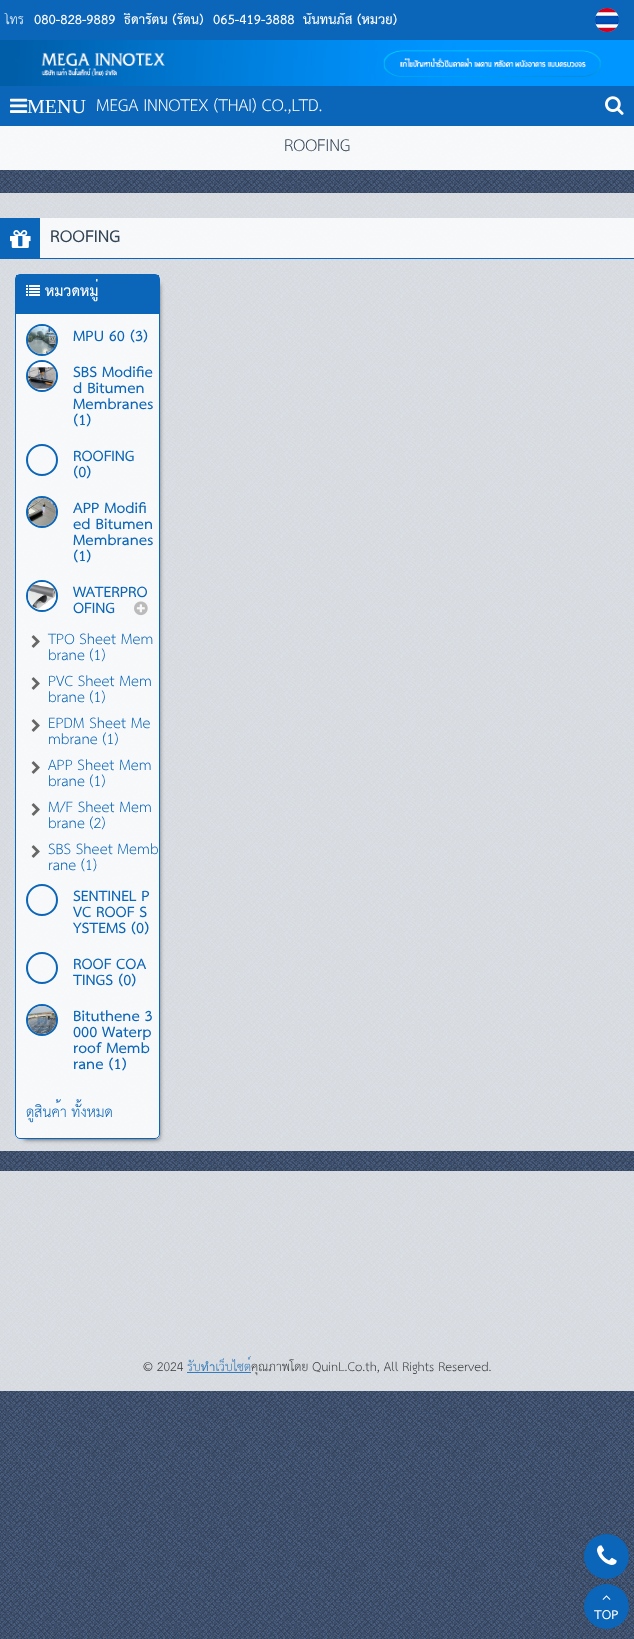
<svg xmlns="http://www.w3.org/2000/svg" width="634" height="1639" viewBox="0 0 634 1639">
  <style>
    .t1 { font: 12.6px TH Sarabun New; fill: #fff; }
    .t2 { font: bold 12.6px TH Sarabun New; fill: #fff; }
    .t3 { font: 20px Liberation Serif; fill: #fff; }
    .t4 { font: 16px TH Sarabun New; fill: #fff; }
    .t5 { font: 16px TH Sarabun New; fill: #345; }
    .t6 { font: bold 16px TH Sarabun New; fill: #345; }
    .t7 { font: bold 14px TH Sarabun New; fill: #fff; }
    .t8 { font: bold 14px TH Sarabun New; fill: #0b65b8; }
    .t9 { font: 14px TH Sarabun New; fill: #0b65b8; }
    .t10 { font: 12px TH Sarabun New; fill: #3a3a3a; }
    .t11 { font: 12px TH Sarabun New; fill: #337ab7; }
    .t12 { font: bold 12px TH Sarabun New; fill: #fff; }
  </style>
  <defs>
    <clipPath id="clip1"><rect x="0" y="13" width="454" height="15"/></clipPath>
    <clipPath id="clip2"><path d="M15 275H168V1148H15ZM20 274H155C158 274 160 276 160 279V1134C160 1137 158 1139 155 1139H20C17 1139 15 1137 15 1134V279C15 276 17 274 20 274Z" clip-rule="evenodd"/></clipPath>
  </defs>
  <rect width="100%" height="100%" fill="#495d7f"/>
  <image x="0" y="126" width="634" height="1513" href="images/1.png"/>
  <rect x="0" y="0" width="634" height="40" fill="#0b65b8"/>
  <g clip-path="url(#clip1)">
    <text x="5" y="24" class="t1">โทร</text>
    <text x="34" y="24" class="t2" xml:space="preserve">080-828-9889  ธิดารัตน์ (รัตน์)</text>
    <text x="213" y="24" class="t2" xml:space="preserve">065-419-3888  นันท์นภัส (หมวย)</text>
  </g>
  <image x="595" y="8" width="24" height="24" href="images/2.png"/>
  <image x="0" y="40" width="634" height="46" href="images/3.png"/>
  <rect x="0" y="86" width="634" height="40" fill="#0b65b8"/>
  <image x="10" y="98" width="18" height="15" href="images/4.png"/>
  <text x="27" y="113" class="t3">MENU</text>
  <text x="96" y="111" class="t4">MEGA INNOTEX (THAI) CO.,LTD.</text>
  <image x="605" y="96" width="19" height="19" href="images/5.png"/>
  <rect x="0" y="126" width="634" height="44" fill="#ffffffcc"/>
  <rect x="0" y="126" width="634" height="44" fill="#ffffffcc"/>
  <text x="284" y="151" class="t5">ROOFING</text>
  <rect x="0" y="193" width="634" height="958" fill="#ffffffcc"/>
  <rect x="0" y="218" width="40" height="40" fill="#0b65b8"/>
  <image x="10" y="230" width="21" height="18" href="images/6.png"/>
  <rect x="40" y="218" width="594" height="40" fill="#ffffffcc"/>
  <rect x="0" y="258" width="634" height="1" fill="#0b65b8"/>
  <text x="50" y="242" class="t6">ROOFING</text>
  <g clip-path="url(#clip2)">
    <rect x="24" y="284" width="135" height="855" fill="#000000bf" filter="blur(2.5px)"/>
  </g>
  <image x="15" y="274" width="145" height="865" href="images/7.png"/>
  <rect x="15.5" y="274.5" width="144" height="864" rx="4.5" fill="none" stroke="#0b65b8"/>
  <rect x="16" y="275" width="143" height="39" fill="#0b65b8"/>
  <image x="26" y="285" width="14" height="11" href="images/8.png"/>
  <text x="45" y="296" class="t7">หมวดหมู่</text>
  <circle cx="42" cy="340" r="15" fill="none" stroke="#0b65b8" stroke-width="2"/>
  <image x="28" y="326" width="28" height="28" href="images/9.png"/>
  <text x="73" y="341" class="t8">MPU 60 (3)</text>
  <circle cx="42" cy="376" r="15" fill="none" stroke="#0b65b8" stroke-width="2"/>
  <image x="28" y="362" width="28" height="28" href="images/10.png"/>
  <text x="73" y="377" class="t8">SBS Modifie</text>
  <text x="73" y="393" class="t8">d Bitumen</text>
  <text x="73" y="409" class="t8">Membranes</text>
  <text x="73" y="425" class="t8">(1)</text>
  <circle cx="42" cy="460" r="15" fill="none" stroke="#0b65b8" stroke-width="2"/>
  <text x="73" y="461" class="t8">ROOFING</text>
  <text x="73" y="477" class="t8">(0)</text>
  <circle cx="42" cy="512" r="15" fill="none" stroke="#0b65b8" stroke-width="2"/>
  <image x="28" y="498" width="28" height="28" href="images/11.png"/>
  <text x="73" y="513" class="t8">APP Modifi</text>
  <text x="73" y="529" class="t8">ed Bitumen</text>
  <text x="73" y="545" class="t8">Membranes</text>
  <text x="73" y="561" class="t8">(1)</text>
  <circle cx="42" cy="596" r="15" fill="none" stroke="#0b65b8" stroke-width="2"/>
  <image x="28" y="582" width="28" height="28" href="images/12.png"/>
  <text x="73" y="597" class="t8">WATERPRO</text>
  <text x="73" y="613" class="t8">OFING</text>
  <image x="134" y="601" width="14" height="15" href="images/13.png"/>
  <image x="31" y="635" width="9" height="13" href="images/14.png"/>
  <text x="48" y="644" class="t9">TPO Sheet Mem</text>
  <text x="48" y="660" class="t9">brane (1)</text>
  <image x="31" y="677" width="9" height="13" href="images/14.png"/>
  <text x="48" y="686" class="t9">PVC Sheet Mem</text>
  <text x="48" y="702" class="t9">brane (1)</text>
  <image x="31" y="719" width="9" height="13" href="images/14.png"/>
  <text x="48" y="728" class="t9">EPDM Sheet Me</text>
  <text x="48" y="744" class="t9">mbrane (1)</text>
  <image x="31" y="761" width="9" height="13" href="images/14.png"/>
  <text x="48" y="770" class="t9">APP Sheet Mem</text>
  <text x="48" y="786" class="t9">brane (1)</text>
  <image x="31" y="803" width="9" height="13" href="images/14.png"/>
  <text x="48" y="812" class="t9">M/F Sheet Mem</text>
  <text x="48" y="828" class="t9">brane (2)</text>
  <image x="31" y="845" width="9" height="13" href="images/14.png"/>
  <text x="48" y="854" class="t9">SBS Sheet Memb</text>
  <text x="48" y="870" class="t9">rane (1)</text>
  <circle cx="42" cy="900" r="15" fill="none" stroke="#0b65b8" stroke-width="2"/>
  <text x="73" y="901" class="t8">SENTINEL P</text>
  <text x="73" y="917" class="t8">VC ROOF S</text>
  <text x="73" y="933" class="t8">YSTEMS (0)</text>
  <circle cx="42" cy="968" r="15" fill="none" stroke="#0b65b8" stroke-width="2"/>
  <text x="73" y="969" class="t8">ROOF COA</text>
  <text x="73" y="985" class="t8">TINGS (0)</text>
  <circle cx="42" cy="1020" r="15" fill="none" stroke="#0b65b8" stroke-width="2"/>
  <image x="28" y="1006" width="28" height="28" href="images/15.png"/>
  <text x="73" y="1021" class="t8">Bituthene 3</text>
  <text x="73" y="1037" class="t8">000 Waterp</text>
  <text x="73" y="1053" class="t8">roof Memb</text>
  <text x="73" y="1069" class="t8">rane (1)</text>
  <text x="26" y="1117" class="t9">ดูสินค้า ทั้งหมด</text>
  <rect x="0" y="1171" width="634" height="220" fill="#ffffffcc"/>
  <text x="143" y="1371" class="t10">© 2024</text>
  <text x="187" y="1371" class="t11">รับทำเว็บไซต์</text>
  <rect x="187" y="1372" width="64" height="1" fill="#337ab7"/>
  <text x="251" y="1371" class="t10">คุณภาพโดย QuinL.Co.th, All Rights Reserved.</text>
  <circle cx="606.5" cy="1556.5" r="22.5" fill="#0b65b8"/>
  <image x="597" y="1545" width="20" height="20" href="images/16.png"/>
  <circle cx="606.5" cy="1606.5" r="22.5" fill="#0b65b8"/>
  <image x="602" y="1595" width="9" height="5" href="images/17.png"/>
  <text x="594" y="1619" class="t12">TOP</text>
</svg>
